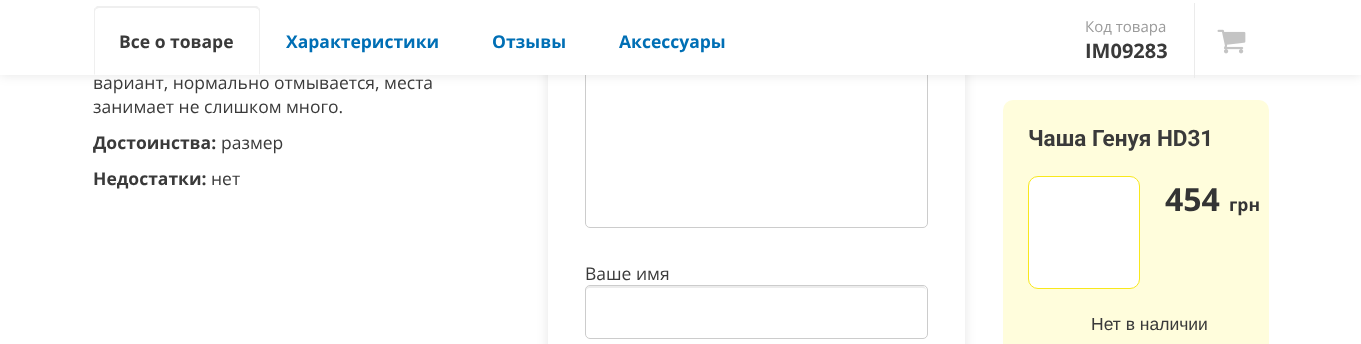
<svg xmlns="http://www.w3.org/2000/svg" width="1361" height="344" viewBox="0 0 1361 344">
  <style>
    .t1 { font: bold 17.5px Open Sans; fill: #3a3a3a; }
    .t2 { font: bold 17.5px Open Sans; fill: #006fb5; }
    .t3 { font: 15px Open Sans; fill: #9b9b9b; }
    .t4 { font: bold 20px Open Sans; fill: #3a3a3a; }
    .t5 { font: 17.5px Open Sans; fill: #3a3a3a; }
    .t6 { font: bold 22.5px Roboto; fill: #3a3a3a; }
    .t7 { font: bold 32px Open Sans; fill: #343434; }
    .t8 { font: bold 17.5px Open Sans; fill: #343434; }
    .t9 { font: 17.5px Liberation Sans; fill: #3a3a3a; }
  </style>
  <defs>
    <clipPath id="clip1"><path d="M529 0H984V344H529ZM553-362H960C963-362 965-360 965-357V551C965 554 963 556 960 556H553C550 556 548 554 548 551V-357C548-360 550-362 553-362Z" clip-rule="evenodd"/></clipPath>
  </defs>
  <rect width="100%" height="100%" fill="#fff"/>
  <g clip-path="url(#clip1)">
    <rect x="548" y="-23" width="417" height="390" rx="5" fill="#0000001a" filter="blur(6px)"/>
  </g>
  <rect x="585.5" y="68.5" width="342" height="159" rx="4.5" fill="none" stroke="#ccc"/>
  <rect x="0" y="0" width="1361" height="75" fill="#0000001a" filter="blur(6px)"/>
  <rect x="0" y="0" width="1361" height="75" fill="#fff"/>
  <path d="M99 8L96 9L95 8L97 6H257L259 8L258 9L255 8Z" fill="#efefef"/>
  <path d="M260 75V11C260 10 260 8 259 8L258 9L259 11V74Z" fill="#efefef"/>
  <path d="M260 75L259 74H95L94 75Z" fill="#fff"/>
  <path d="M94 75V11C94 10 94 8 95 8L96 9L95 11V74Z" fill="#efefef"/>
  <text x="119" y="48" class="t1">Все о товаре</text>
  <text x="286" y="48" class="t2">Характеристики</text>
  <text x="492" y="48" class="t2">Отзывы</text>
  <text x="619" y="48" class="t2">Аксессуары</text>
  <text x="1085" y="32" class="t3">Код товара</text>
  <text x="1085" y="58" class="t4">IM09283</text>
  <rect x="1194" y="3" width="1" height="75" fill="#ebebeb"/>
  <image x="1217" y="29" width="29" height="25" href="images/1.png"/>
  <text x="93" y="89" class="t5">вариант, нормально отмывается, места</text>
  <text x="93" y="113" class="t5">занимает не слишком много.</text>
  <text x="93" y="149" class="t1">Достоинства:</text>
  <text x="221" y="149" class="t5">размер</text>
  <text x="93" y="185" class="t1">Недостатки:</text>
  <text x="211" y="185" class="t5">нет</text>
  <text x="585" y="280" class="t5">Ваше имя</text>
  <path d="M590 288H922C925 288 926 289 926 291V290C926 288 924 286 922 286H590C588 286 586 288 586 290V291C586 289 588 288 590 288Z" fill="#ececec"/>
  <rect x="585.5" y="285.5" width="342" height="53" rx="4.5" fill="none" stroke="#ccc"/>
  <rect x="1003" y="100" width="266" height="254" rx="10" fill="#fffddc"/>
  <text x="1028" y="146" class="t6">Чаша Генуя HD31</text>
  <rect x="1028.5" y="176.5" width="111" height="112" rx="9.5" fill="#fff" stroke="#f8e81c"/>
  <text x="1165" y="211" class="t7">454</text>
  <text x="1229" y="211" class="t8">грн</text>
  <text x="1091" y="330" class="t9">Нет в наличии</text>
</svg>
